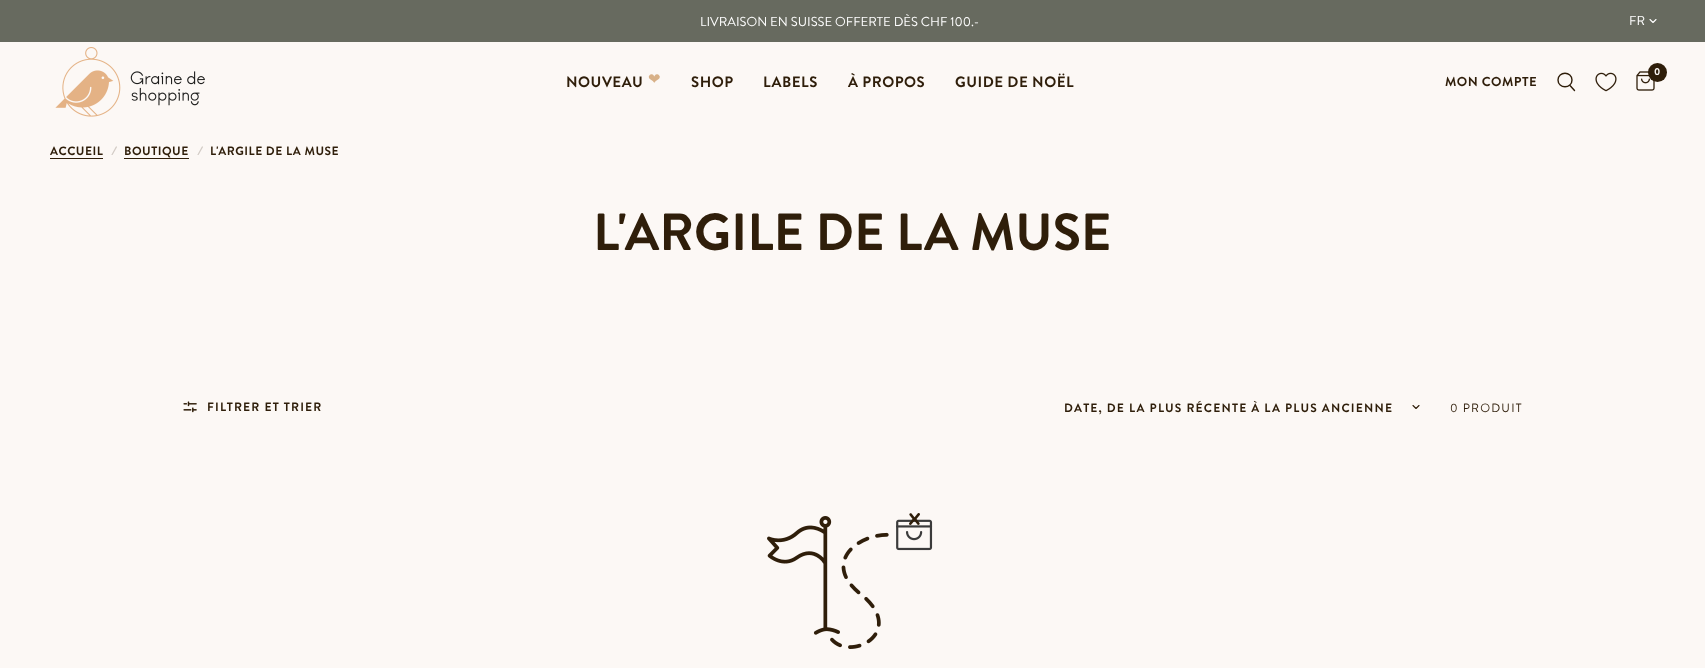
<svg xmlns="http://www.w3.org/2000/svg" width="1705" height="668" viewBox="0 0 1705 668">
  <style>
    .t1 { font: 13px Brandon Grotesque; fill: #fff; }
    .t2 { font: bold 15px Brandon Grotesque; letter-spacing: 0.5px; fill: #2f1e0a; }
    .t3 { font: 15px DejaVu Sans; fill: #d8b188; }
    .t4 { font: bold 13px Brandon Grotesque; letter-spacing: 0.5px; fill: #2f1e0a; }
    .t5 { font: bold 10px Brandon Grotesque; fill: #fcf8f5; }
    .t6 { font: bold 12px Brandon Grotesque; letter-spacing: 0.5px; fill: #2f1e0a; }
    .t7 { font: italic bold 12px Brandon Grotesque; letter-spacing: 0.5px; fill: #d3ccc6; }
    .t8 { font: bold 52px Brandon Grotesque; fill: #2f1e0a; }
    .t9 { font: bold 12px Brandon Grotesque; letter-spacing: 1.2px; fill: #2f1e0a; }
    .t10 { font: 12px Brandon Grotesque; letter-spacing: 1.2px; fill: #2f1e0a; }
  </style>
  <rect width="100%" height="100%" fill="#fcf8f5"/>
  <rect x="0" y="0" width="1705" height="42" fill="#676a5f"/>
  <text x="700" y="26" class="t1">LIVRAISON EN SUISSE OFFERTE DÈS CHF 100.-</text>
  <text x="1629" y="25" class="t1">FR</text>
  <path d="M1656 19.5L1653 22.5L1650 19.5" fill="none" stroke="#fff" stroke-width="1.1" stroke-linecap="round" stroke-linejoin="round"/>
  <image x="55" y="47" width="150" height="70" href="images/1.png"/>
  <text x="566" y="87" class="t2">NOUVEAU</text>
  <text x="648" y="84" class="t3">❤</text>
  <text x="691" y="87" class="t2">SHOP</text>
  <text x="763" y="87" class="t2">LABELS</text>
  <text x="848" y="87" class="t2">À PROPOS</text>
  <text x="955" y="87" class="t2">GUIDE DE NOËL</text>
  <text x="1445" y="86" class="t4">MON COMPTE</text>
  <path d="M1570 85.5L1574.5 90.5M1572 80C1572 89 1558 89 1558 80C1558 71 1572 71 1572 80Z" fill="none" stroke="#2f1e0a" stroke-width="1.4" stroke-linecap="round" stroke-linejoin="round"/>
  <image x="1595" y="72" width="22" height="20" href="images/2.png"/>
  <image x="1636" y="71" width="19" height="20" href="images/3.png"/>
  <circle cx="1657.5" cy="72.5" r="9.5" fill="#2f1e0a"/>
  <text x="1654" y="75" class="t5">0</text>
  <text x="50" y="155" class="t6">ACCUEIL</text>
  <rect x="50" y="158" width="53" height="1" fill="#2f1e0a"/>
  <text x="111" y="155" class="t7">/</text>
  <text x="124" y="155" class="t6">BOUTIQUE</text>
  <rect x="124" y="158" width="65" height="1" fill="#2f1e0a"/>
  <text x="197" y="155" class="t7">/</text>
  <text x="210" y="155" class="t6">L'ARGILE DE LA MUSE</text>
  <text x="593" y="250" class="t8">L'ARGILE DE LA MUSE</text>
  <image x="183" y="401" width="14" height="12" href="images/4.png"/>
  <text x="207" y="411" class="t9">FILTRER ET TRIER</text>
  <text x="1064" y="412" class="t9">DATE, DE LA PLUS RÉCENTE À LA PLUS ANCIENNE</text>
  <path d="M1419 405.5L1416 408.5L1413 405.5" fill="none" stroke="#2f1e0a" stroke-width="1.1" stroke-linecap="round" stroke-linejoin="round"/>
  <text x="1450" y="412" class="t10">0 PRODUIT</text>
  <image x="767" y="513" width="166" height="136" href="images/5.png"/>
</svg>
